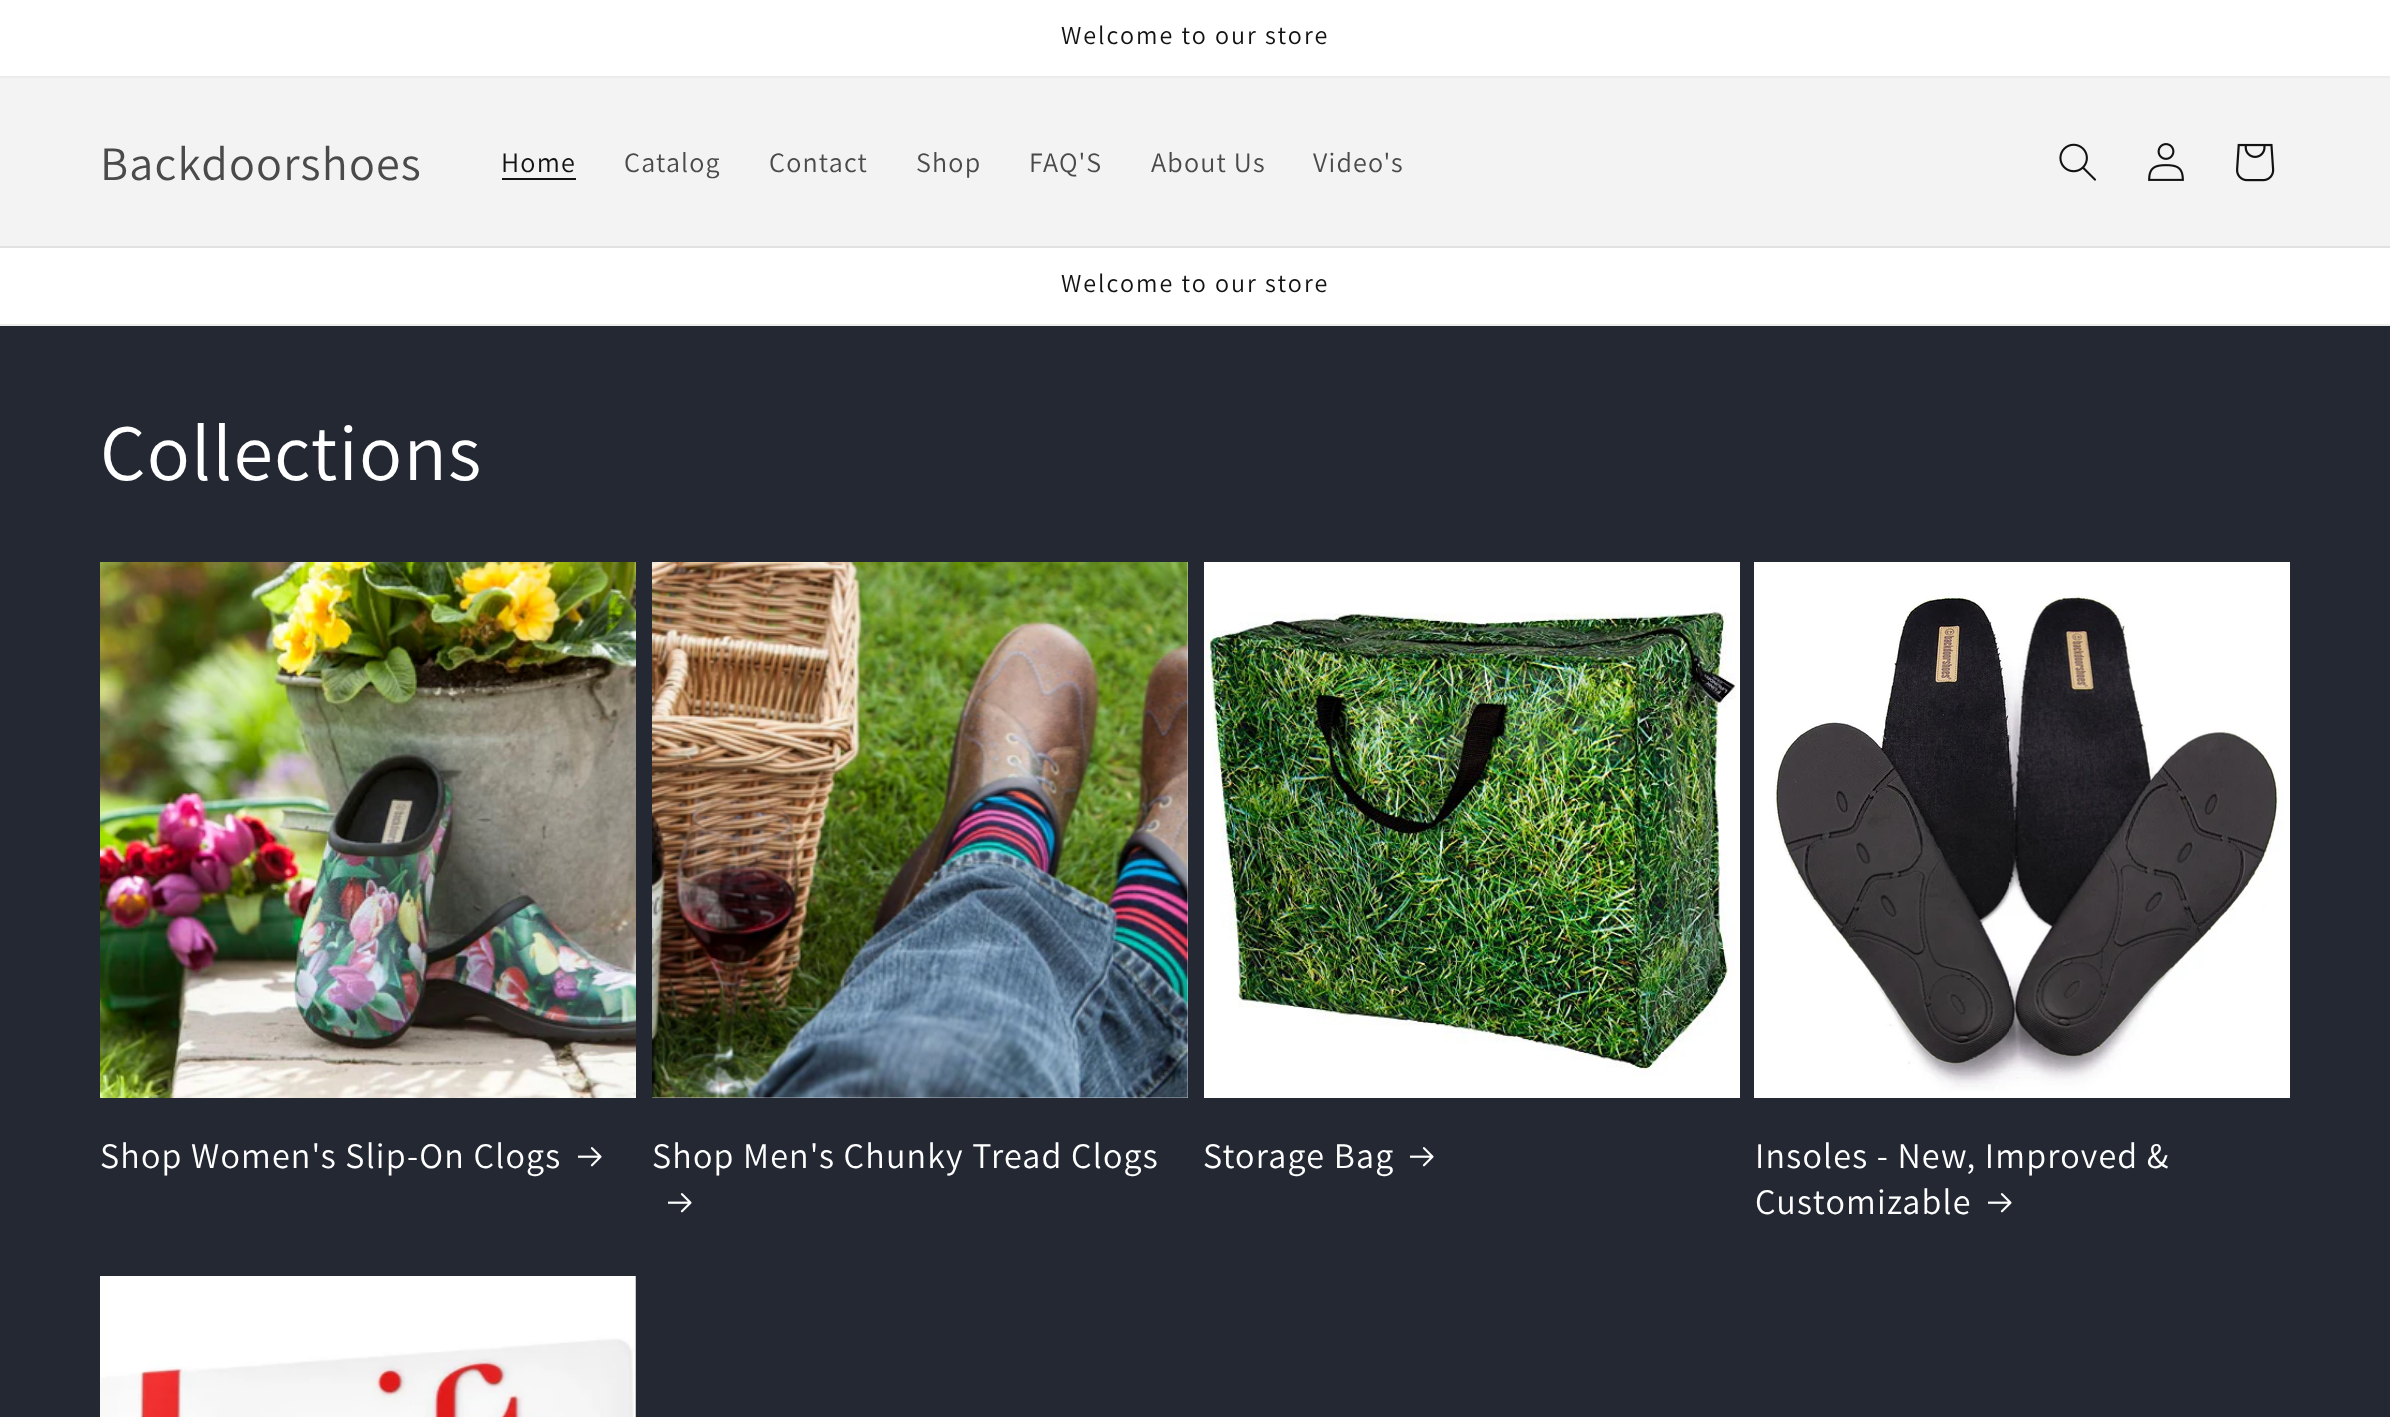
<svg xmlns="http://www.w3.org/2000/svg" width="2390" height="1417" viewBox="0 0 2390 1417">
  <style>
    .t1 { font: 26px Assistant; letter-spacing: 2px; fill: #121212; }
    .t2 { font: 48px Assistant; letter-spacing: 1.2px; fill: #4a4a4a; }
    .t3 { font: 28px Assistant; letter-spacing: 1.2px; fill: #121212; }
    .t4 { font: 28px Assistant; letter-spacing: 1.2px; fill: #4a4a4a; }
    .t5 { font: 80px Assistant; letter-spacing: 1.2px; fill: #fff; }
    .t6 { font: 36px Assistant; letter-spacing: 1.2px; fill: #fff; }
  </style>
  <rect width="100%" height="100%" fill="#fff"/>
  <rect x="0" y="76" width="2390" height="2" fill="#ececec"/>
  <text x="1061" y="44" class="t1">Welcome to our store</text>
  <rect x="0" y="78" width="2390" height="168" fill="#f3f3f3"/>
  <rect x="0" y="246" width="2390" height="2" fill="#e1e1e1"/>
  <text x="100" y="180" class="t2">Backdoorshoes</text>
  <text x="501" y="172" class="t3">Home</text>
  <rect x="502" y="178" width="74" height="2" fill="#121212"/>
  <text x="624" y="172" class="t4">Catalog</text>
  <text x="769" y="172" class="t4">Contact</text>
  <text x="916" y="172" class="t4">Shop</text>
  <text x="1029" y="172" class="t4">FAQ'S</text>
  <text x="1151" y="172" class="t4">About Us</text>
  <text x="1313" y="172" class="t4">Video's</text>
  <image x="2059" y="143" width="37" height="38" href="images/1.png"/>
  <image x="2148" y="143" width="36" height="38" href="images/2.png"/>
  <image x="2236" y="143" width="39" height="39" href="images/3.png"/>
  <rect x="0" y="324" width="2390" height="2" fill="#ececec"/>
  <text x="1061" y="292" class="t1">Welcome to our store</text>
  <rect x="0" y="326" width="2390" height="1091" fill="#242833"/>
  <text x="100" y="480" class="t5">Collections</text>
  <image x="100" y="562" width="536" height="536" href="images/4.png"/>
  <text x="100" y="1168" class="t6">Shop Women's Slip-On Clogs</text>
  <image x="578" y="1147" width="24" height="20" href="images/5.png"/>
  <rect x="652" y="562" width="536" height="536" fill="#f3f3f3"/>
  <image x="652" y="562" width="536" height="536" href="images/6.png"/>
  <text x="652" y="1168" class="t6">Shop Men's Chunky Tread Clogs</text>
  <image x="668" y="1193" width="24" height="20" href="images/5.png"/>
  <image x="1204" y="562" width="536" height="536" href="images/7.png"/>
  <text x="1203" y="1168" class="t6">Storage Bag</text>
  <image x="1410" y="1147" width="24" height="20" href="images/5.png"/>
  <image x="1754" y="562" width="536" height="536" href="images/8.png"/>
  <text x="1755" y="1168" class="t6">Insoles - New, Improved &amp;</text>
  <text x="1755" y="1214" class="t6">Customizable</text>
  <image x="1988" y="1193" width="24" height="20" href="images/5.png"/>
  <image x="100" y="1276" width="536" height="141" href="images/9.png"/>
</svg>
